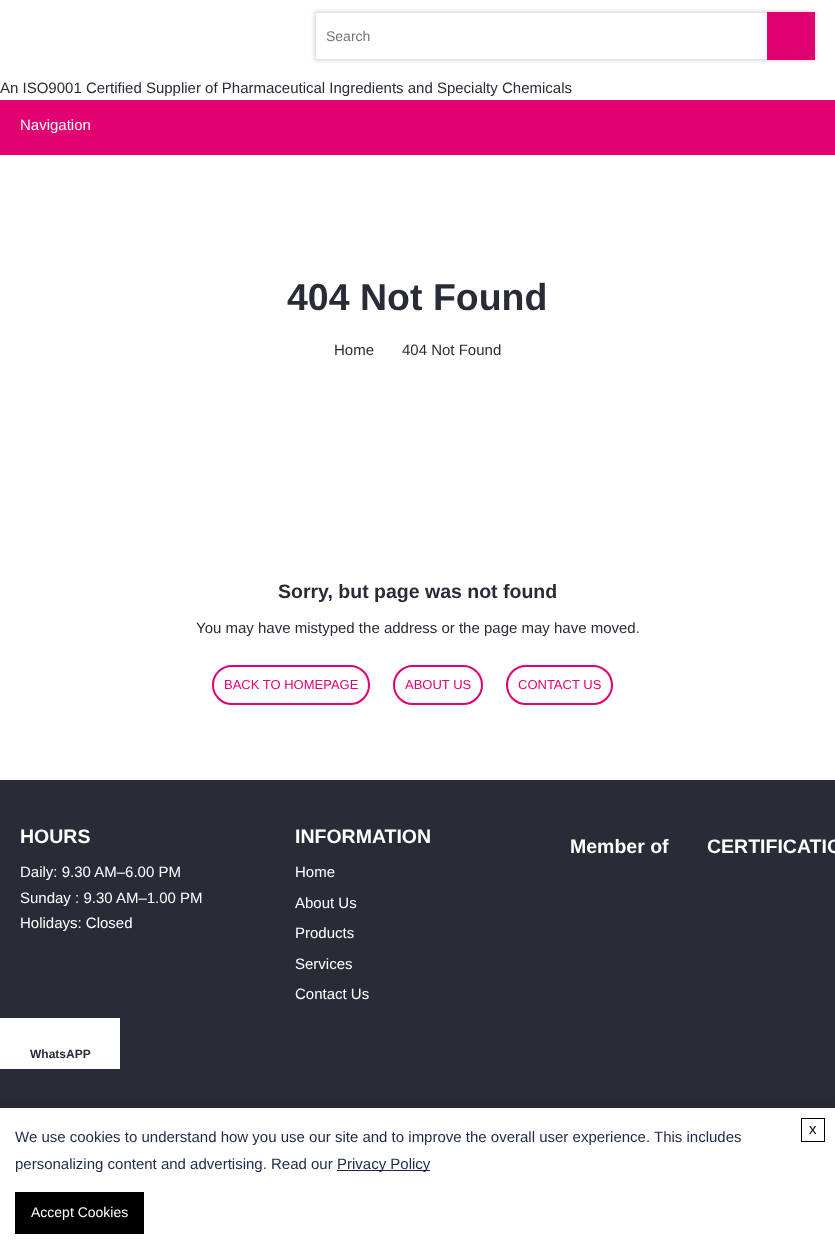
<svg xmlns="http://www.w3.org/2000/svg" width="835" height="1249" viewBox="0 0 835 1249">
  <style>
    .t1 { font: 14px Liberation Sans; fill: #757575; }
    .t2 { font: 15px Liberation Sans; fill: #292c37; }
    .t3 { font: 15px Liberation Sans; fill: #fff; }
    .t4 { font: bold 37.5px Liberation Sans; fill: #292c37; }
    .t5 { font: bold 19.5px Liberation Sans; fill: #292c37; }
    .t6 { font: 13px Liberation Sans; fill: #e20170; }
    .t7 { font: bold 19.5px Liberation Sans; fill: #fff; }
    .t8 { font: bold 12px Liberation Sans; fill: #292c37; }
    .t9 { font: 15px Liberation Sans; fill: #000; }
    .t10 { font: 15px Liberation Sans; fill: #1d294c; }
    .t11 { font: 14px Liberation Sans; fill: #fff; }
  </style>
  <defs>
    <clipPath id="clip1"><path d="M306 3H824V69H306ZM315 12H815V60H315Z" clip-rule="evenodd"/></clipPath>
  </defs>
  <rect width="100%" height="100%" fill="#fff"/>
  <rect x="0" y="100" width="835" height="55" fill="#e20170"/>
  <g clip-path="url(#clip1)">
    <rect x="315" y="12" width="500" height="48" fill="#00000033" filter="blur(2.5px)"/>
  </g>
  <rect x="315.5" y="12.5" width="499" height="47" fill="none" stroke="#e5e5e5"/>
  <text x="326" y="41" class="t1">Search</text>
  <rect x="767" y="12" width="48" height="48" fill="#e20170"/>
  <text x="0" y="93" class="t2">An ISO9001 Certified Supplier of Pharmaceutical Ingredients and Specialty Chemicals</text>
  <text x="20" y="130" class="t3">Navigation</text>
  <text x="287" y="310" class="t4">404 Not Found</text>
  <text x="334" y="355" class="t2">Home</text>
  <text x="402" y="355" class="t2">404 Not Found</text>
  <text x="278" y="598" class="t5">Sorry, but page was not found</text>
  <text x="196" y="633" class="t2">You may have mistyped the address or the page may have moved.</text>
  <rect x="213" y="666" width="156" height="38" rx="19" fill="none" stroke="#e20170" stroke-width="2"/>
  <text x="224" y="689" class="t6">BACK TO HOMEPAGE</text>
  <rect x="394" y="666" width="88" height="38" rx="19" fill="none" stroke="#e20170" stroke-width="2"/>
  <text x="405" y="689" class="t6">ABOUT US</text>
  <rect x="507" y="666" width="105" height="38" rx="19" fill="none" stroke="#e20170" stroke-width="2"/>
  <text x="518" y="689" class="t6">CONTACT US</text>
  <rect x="0" y="780" width="835" height="328" fill="#292c37"/>
  <text x="20" y="843" class="t7">HOURS</text>
  <text x="20" y="877" class="t3">Daily: 9.30 AM–6.00 PM</text>
  <text x="20" y="903" class="t3">Sunday : 9.30 AM–1.00 PM</text>
  <text x="20" y="928" class="t3">Holidays: Closed</text>
  <text x="295" y="843" class="t7">INFORMATION</text>
  <text x="295" y="877" class="t3">Home</text>
  <text x="295" y="908" class="t3">About Us</text>
  <text x="295" y="938" class="t3">Products</text>
  <text x="295" y="969" class="t3">Services</text>
  <text x="295" y="999" class="t3">Contact Us</text>
  <text x="570" y="853" class="t7">Member of</text>
  <text x="707" y="853" class="t7">CERTIFICATIO</text>
  <rect x="0" y="1018" width="120" height="51" fill="#fff"/>
  <text x="30" y="1058" class="t8">WhatsAPP</text>
  <rect x="0" y="1108" width="835" height="141" fill="#00000033" filter="blur(9px)"/>
  <rect x="0" y="1108" width="835" height="141" fill="#fff"/>
  <rect x="801.5" y="1118.5" width="23" height="23" fill="none" stroke="#000"/>
  <text x="809" y="1134" class="t9">x</text>
  <text x="15" y="1142" class="t10">We use cookies to understand how you use our site and to improve the overall user experience. This includes</text>
  <text x="15" y="1169" class="t10">personalizing content and advertising. Read our</text>
  <rect x="337" y="1170" width="93" height="1" fill="#1d294c"/>
  <text x="337" y="1169" class="t10">Privacy Policy</text>
  <rect x="15" y="1192" width="129" height="42" fill="#000"/>
  <text x="31" y="1217" class="t11">Accept Cookies</text>
</svg>
